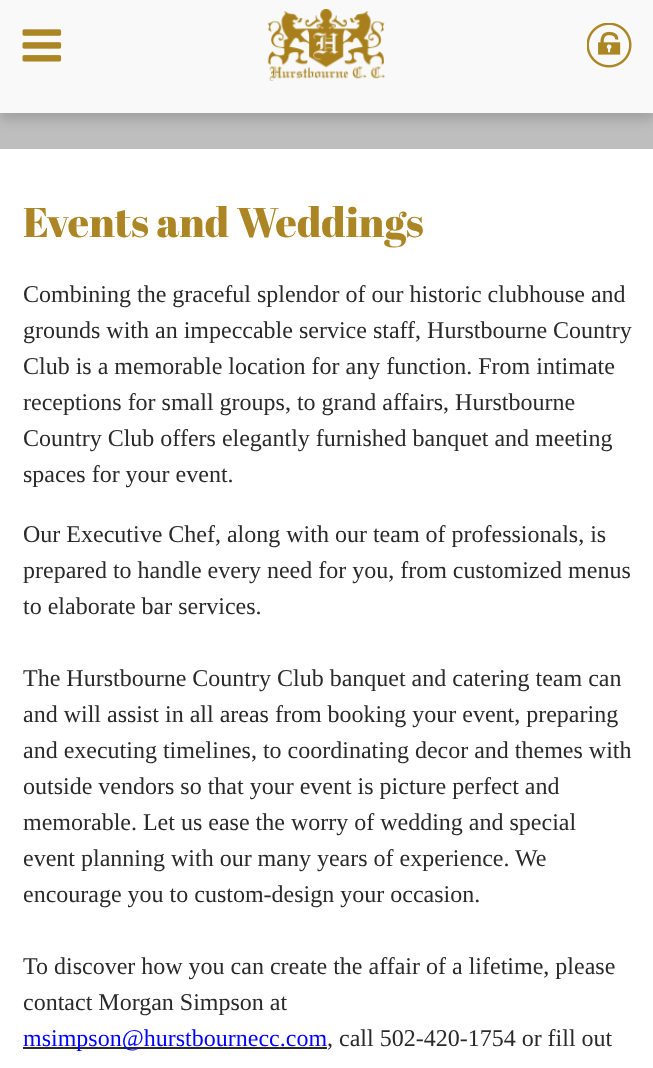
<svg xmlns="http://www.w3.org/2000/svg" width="653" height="1068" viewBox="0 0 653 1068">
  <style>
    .t1 { font: 41.5px Abril Fatface; fill: #ac8625; }
    .t2 { font: 24px Liberation Serif; fill: #2a2a2a; }
    .t3 { font: 24px Liberation Serif; fill: #00f; }
  </style>
  <rect width="100%" height="100%" fill="#bfbebe"/>
  <rect x="0" y="8" width="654" height="112" fill="#00000026" filter="blur(6px)"/>
  <rect x="0" y="0" width="653" height="113" fill="#f8f9f8"/>
  <image x="22" y="29" width="40" height="33" href="images/1.png"/>
  <image x="267" y="9" width="118" height="72" href="images/2.png"/>
  <image x="587" y="23" width="45" height="45" href="images/3.png"/>
  <rect x="0" y="149" width="653" height="919" fill="#fff"/>
  <text x="23" y="237" class="t1">Events and Weddings</text>
  <text x="23" y="302" class="t2">Combining the graceful splendor of our historic clubhouse and</text>
  <text x="23" y="338" class="t2">grounds with an impeccable service staff, Hurstbourne Country</text>
  <text x="23" y="374" class="t2">Club is a memorable location for any function. From intimate</text>
  <text x="23" y="410" class="t2">receptions for small groups, to grand affairs, Hurstbourne</text>
  <text x="23" y="446" class="t2">Country Club offers elegantly furnished banquet and meeting</text>
  <text x="23" y="482" class="t2">spaces for your event.</text>
  <text x="23" y="542" class="t2">Our Executive Chef, along with our team of professionals, is</text>
  <text x="23" y="578" class="t2">prepared to handle every need for you, from customized menus</text>
  <text x="23" y="614" class="t2">to elaborate bar services.</text>
  <text x="23" y="686" class="t2">The Hurstbourne Country Club banquet and catering team can</text>
  <text x="23" y="722" class="t2">and will assist in all areas from booking your event, preparing</text>
  <text x="23" y="758" class="t2">and executing timelines, to coordinating decor and themes with</text>
  <text x="23" y="794" class="t2">outside vendors so that your event is picture perfect and</text>
  <text x="23" y="830" class="t2">memorable. Let us ease the worry of wedding and special</text>
  <text x="23" y="866" class="t2">event planning with our many years of experience. We</text>
  <text x="23" y="902" class="t2">encourage you to custom-design your occasion.</text>
  <text x="23" y="974" class="t2">To discover how you can create the affair of a lifetime, please</text>
  <text x="23" y="1010" class="t2">contact Morgan Simpson at</text>
  <rect x="23" y="1047" width="304" height="2" fill="#2a2a2a"/>
  <text x="23" y="1046" class="t3">msimpson@hurstbournecc.com</text>
  <text x="327" y="1046" class="t2">, call 502-420-1754 or fill out</text>
</svg>
